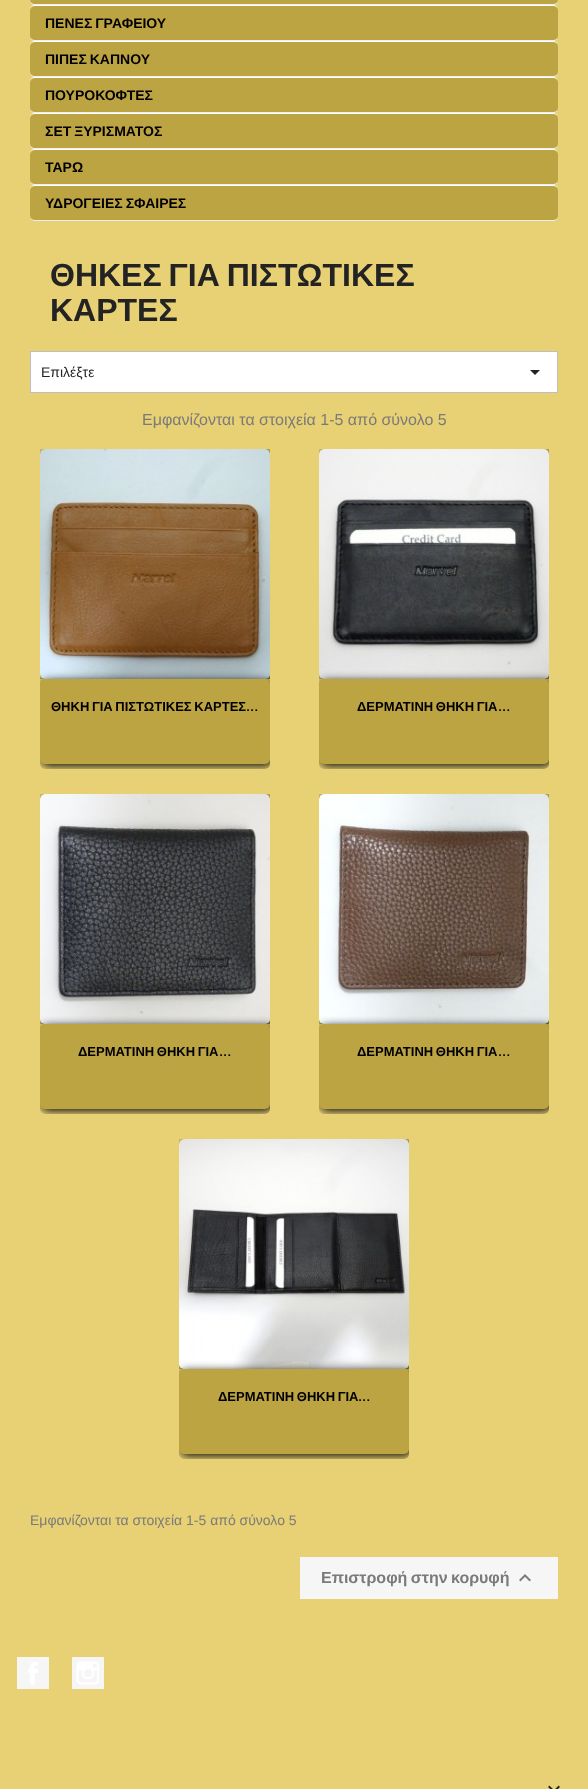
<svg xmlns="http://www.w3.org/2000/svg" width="588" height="1789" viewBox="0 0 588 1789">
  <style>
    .t1 { font: bold 14px Liberation Sans; fill: #000; }
    .t2 { font: bold 32px Liberation Sans; fill: #232323; }
    .t3 { font: 14px Liberation Sans; fill: #232323; }
    .t4 { font: 16px Liberation Sans; fill: #7a7a7a; }
    .t5 { font: bold 13px Liberation Sans; fill: #000; }
    .t6 { font: bold 13px Manrope; fill: #000; }
    .t7 { font: 14px Liberation Sans; fill: #7a7a7a; }
    .t8 { font: bold 16px Liberation Sans; fill: #7a7a7a; }
  </style>
  <defs>
    <clipPath id="clip1"><rect x="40" y="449" width="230" height="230"/></clipPath>
    <clipPath id="clip2"><rect x="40" y="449" width="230" height="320" rx="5"/></clipPath>
    <clipPath id="clip3"><rect x="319" y="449" width="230" height="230"/></clipPath>
    <clipPath id="clip4"><rect x="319" y="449" width="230" height="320" rx="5"/></clipPath>
    <clipPath id="clip5"><rect x="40" y="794" width="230" height="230"/></clipPath>
    <clipPath id="clip6"><rect x="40" y="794" width="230" height="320" rx="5"/></clipPath>
    <clipPath id="clip7"><rect x="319" y="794" width="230" height="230"/></clipPath>
    <clipPath id="clip8"><rect x="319" y="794" width="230" height="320" rx="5"/></clipPath>
    <clipPath id="clip9"><rect x="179" y="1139" width="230" height="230"/></clipPath>
    <clipPath id="clip10"><rect x="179" y="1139" width="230" height="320" rx="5"/></clipPath>
  </defs>
  <rect width="100%" height="100%" fill="#e8d074"/>
  <rect x="30" y="-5" width="528" height="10" rx="5" fill="#bda443"/>
  <path d="M553 5C556 5 558 3 558 0C558 2 556 4 553 4H35C32 4 30 2 30 0C30 3 32 5 35 5Z" fill="#eee"/>
  <rect x="30" y="5" width="528" height="36" rx="5" fill="#bda443"/>
  <path d="M35 5C32 5 30 7 30 10C30 8 32 6 35 6H553C556 6 558 8 558 10C558 7 556 5 553 5Z" fill="#fff"/>
  <path d="M553 41C556 41 558 39 558 36C558 38 556 40 553 40H35C32 40 30 38 30 36C30 39 32 41 35 41Z" fill="#eee"/>
  <text x="45" y="28" word-spacing="-1" class="t1">ΠΕΝΕΣ ΓΡΑΦΕΙΟΥ</text>
  <rect x="30" y="41" width="528" height="36" rx="5" fill="#bda443"/>
  <path d="M35 41C32 41 30 43 30 46C30 44 32 42 35 42H553C556 42 558 44 558 46C558 43 556 41 553 41Z" fill="#fff"/>
  <path d="M553 77C556 77 558 75 558 72C558 74 556 76 553 76H35C32 76 30 74 30 72C30 75 32 77 35 77Z" fill="#eee"/>
  <text x="45" y="64" word-spacing="-1" class="t1">ΠΙΠΕΣ ΚΑΠΝΟΥ</text>
  <rect x="30" y="77" width="528" height="36" rx="5" fill="#bda443"/>
  <path d="M35 77C32 77 30 79 30 82C30 80 32 78 35 78H553C556 78 558 80 558 82C558 79 556 77 553 77Z" fill="#fff"/>
  <path d="M553 113C556 113 558 111 558 108C558 110 556 112 553 112H35C32 112 30 110 30 108C30 111 32 113 35 113Z" fill="#eee"/>
  <text x="45" y="100" class="t1">ΠΟΥΡΟΚΟΦΤΕΣ</text>
  <rect x="30" y="113" width="528" height="36" rx="5" fill="#bda443"/>
  <path d="M35 113C32 113 30 115 30 118C30 116 32 114 35 114H553C556 114 558 116 558 118C558 115 556 113 553 113Z" fill="#fff"/>
  <path d="M553 149C556 149 558 147 558 144C558 146 556 148 553 148H35C32 148 30 146 30 144C30 147 32 149 35 149Z" fill="#eee"/>
  <text x="45" y="136" word-spacing="-1" class="t1">ΣΕΤ ΞΥΡΙΣΜΑΤΟΣ</text>
  <rect x="30" y="149" width="528" height="36" rx="5" fill="#bda443"/>
  <path d="M35 149C32 149 30 151 30 154C30 152 32 150 35 150H553C556 150 558 152 558 154C558 151 556 149 553 149Z" fill="#fff"/>
  <path d="M553 185C556 185 558 183 558 180C558 182 556 184 553 184H35C32 184 30 182 30 180C30 183 32 185 35 185Z" fill="#eee"/>
  <text x="45" y="172" class="t1">ΤΑΡΩ</text>
  <rect x="30" y="185" width="528" height="36" rx="5" fill="#bda443"/>
  <path d="M35 185C32 185 30 187 30 190C30 188 32 186 35 186H553C556 186 558 188 558 190C558 187 556 185 553 185Z" fill="#fff"/>
  <path d="M553 221C556 221 558 219 558 216C558 218 556 220 553 220H35C32 220 30 218 30 216C30 219 32 221 35 221Z" fill="#eee"/>
  <text x="45" y="208" word-spacing="-1" class="t1">ΥΔΡΟΓΕΙΕΣ ΣΦΑΙΡΕΣ</text>
  <text x="50" y="286" word-spacing="-2" class="t2">ΘΗΚΕΣ ΓΙΑ ΠΙΣΤΩΤΙΚΕΣ</text>
  <text x="50" y="321" class="t2">ΚΑΡΤΕΣ</text>
  <rect x="30.5" y="351.5" width="527" height="41" fill="#fff" stroke="#bfbfbf"/>
  <text x="41" y="377" class="t3">Επιλέξτε</text>
  <path d="M530 370H540L535 375Z" fill="#232323"/>
  <text x="142" y="425" class="t4">Εμφανίζονται τα στοιχεία 1-5 από σύνολο 5</text>
  <g clip-path="url(#clip1)">
    <rect x="42" y="451" width="230" height="230" rx="5" fill="#0a0a0a" filter="blur(5px)"/>
  </g>
  <rect x="40" y="449" width="230" height="230" rx="5" fill="#bda443"/>
  <image x="40" y="449" width="230" height="230" href="images/1.png"/>
  <g clip-path="url(#clip2)">
    <rect x="42" y="681" width="230" height="85" rx="5" fill="#0a0a0a" filter="blur(5px)"/>
  </g>
  <rect x="40" y="679" width="230" height="85" rx="5" fill="#bda443"/>
  <text x="51" y="711" word-spacing="-1" class="t5">ΘΗΚΗ ΓΙΑ ΠΙΣΤΩΤΙΚΕΣ ΚΑΡΤΕΣ</text>
  <text x="246" y="711" class="t6">...</text>
  <g clip-path="url(#clip3)">
    <rect x="321" y="451" width="230" height="230" rx="5" fill="#0a0a0a" filter="blur(5px)"/>
  </g>
  <rect x="319" y="449" width="230" height="230" rx="5" fill="#bda443"/>
  <image x="319" y="449" width="230" height="230" href="images/2.png"/>
  <g clip-path="url(#clip4)">
    <rect x="321" y="681" width="230" height="85" rx="5" fill="#0a0a0a" filter="blur(5px)"/>
  </g>
  <rect x="319" y="679" width="230" height="85" rx="5" fill="#bda443"/>
  <text x="357" y="711" word-spacing="-1" class="t5">ΔΕΡΜΑΤΙΝΗ ΘΗΚΗ ΓΙΑ</text>
  <text x="498" y="711" class="t6">...</text>
  <g clip-path="url(#clip5)">
    <rect x="42" y="796" width="230" height="230" rx="5" fill="#0a0a0a" filter="blur(5px)"/>
  </g>
  <rect x="40" y="794" width="230" height="230" rx="5" fill="#bda443"/>
  <image x="40" y="794" width="230" height="230" href="images/3.png"/>
  <g clip-path="url(#clip6)">
    <rect x="42" y="1026" width="230" height="85" rx="5" fill="#0a0a0a" filter="blur(5px)"/>
  </g>
  <rect x="40" y="1024" width="230" height="85" rx="5" fill="#bda443"/>
  <text x="78" y="1056" word-spacing="-1" class="t5">ΔΕΡΜΑΤΙΝΗ ΘΗΚΗ ΓΙΑ</text>
  <text x="219" y="1056" class="t6">...</text>
  <g clip-path="url(#clip7)">
    <rect x="321" y="796" width="230" height="230" rx="5" fill="#0a0a0a" filter="blur(5px)"/>
  </g>
  <rect x="319" y="794" width="230" height="230" rx="5" fill="#bda443"/>
  <image x="319" y="794" width="230" height="230" href="images/4.png"/>
  <g clip-path="url(#clip8)">
    <rect x="321" y="1026" width="230" height="85" rx="5" fill="#0a0a0a" filter="blur(5px)"/>
  </g>
  <rect x="319" y="1024" width="230" height="85" rx="5" fill="#bda443"/>
  <text x="357" y="1056" word-spacing="-1" class="t5">ΔΕΡΜΑΤΙΝΗ ΘΗΚΗ ΓΙΑ</text>
  <text x="498" y="1056" class="t6">...</text>
  <g clip-path="url(#clip9)">
    <rect x="181" y="1141" width="230" height="230" rx="5" fill="#0a0a0a" filter="blur(5px)"/>
  </g>
  <rect x="179" y="1139" width="230" height="230" rx="5" fill="#bda443"/>
  <image x="179" y="1139" width="230" height="230" href="images/5.png"/>
  <g clip-path="url(#clip10)">
    <rect x="181" y="1371" width="230" height="85" rx="5" fill="#0a0a0a" filter="blur(5px)"/>
  </g>
  <rect x="179" y="1369" width="230" height="85" rx="5" fill="#bda443"/>
  <text x="218" y="1401" word-spacing="-1" class="t5">ΔΕΡΜΑΤΙΝΗ ΘΗΚΗ ΓΙΑ</text>
  <text x="358" y="1401" class="t6">...</text>
  <text x="30" y="1525" class="t7">Εμφανίζονται τα στοιχεία 1-5 από σύνολο 5</text>
  <rect x="300" y="1557" width="258" height="42" fill="#f6f6f6"/>
  <text x="321" y="1583" word-spacing="-1" class="t8">Επιστροφή στην κορυφή</text>
  <image x="519" y="1574" width="12" height="8" href="images/6.png"/>
  <rect x="17" y="1657" width="32" height="32" fill="#f6f6f6"/>
  <image x="28" y="1662" width="10" height="23" href="images/7.png"/>
  <rect x="72" y="1657" width="32" height="32" fill="#f6f6f6"/>
  <image x="76" y="1661" width="23" height="24" href="images/8.png"/>
  <image x="548" y="1785" width="12" height="4" href="images/9.png"/>
</svg>
